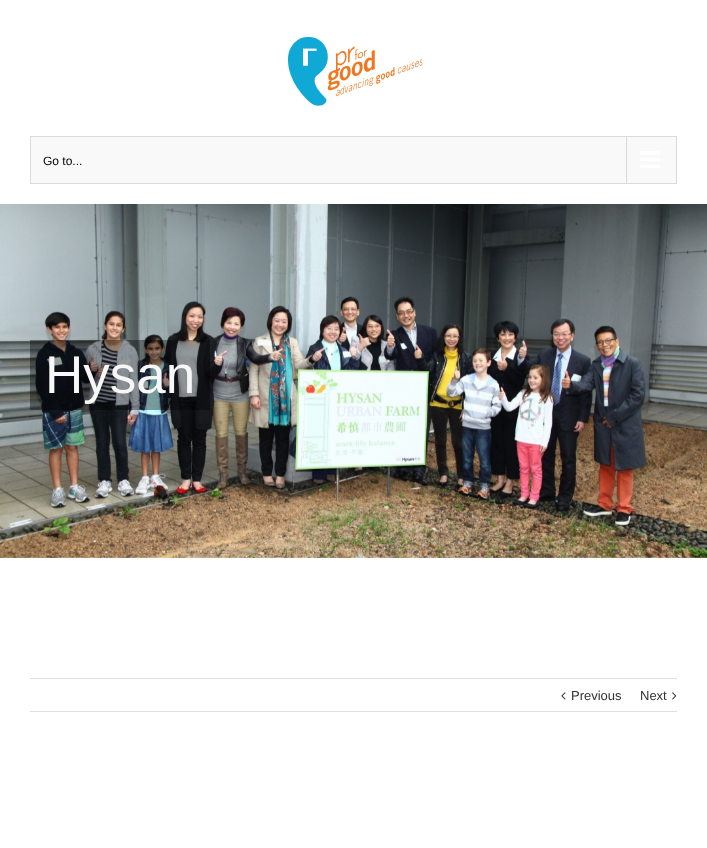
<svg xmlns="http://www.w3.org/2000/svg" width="707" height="848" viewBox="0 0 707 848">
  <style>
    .t1 { font: 12px Liberation Sans; fill: #000; }
    .t2 { font: 53px Liberation Sans; fill: #f7f7f7; }
    .t3 { font: 13px Liberation Sans; fill: #333; }
  </style>
  <rect width="100%" height="100%" fill="#fff"/>
  <image x="288" y="37" width="135" height="69" href="images/1.png"/>
  <rect x="30.5" y="136.5" width="646" height="47" fill="#f9f9f9" stroke="#dadada"/>
  <text x="43" y="165" class="t1">Go to...</text>
  <rect x="626" y="137" width="1" height="46" fill="#dadada"/>
  <image x="640" y="151" width="20" height="17" href="images/2.png"/>
  <image x="0" y="204" width="707" height="354" href="images/3.png"/>
  <rect x="30" y="340" width="180" height="70" fill="#00000061"/>
  <text x="45" y="393" class="t2">Hysan</text>
  <rect x="30" y="678" width="647" height="1" fill="#e0dede"/>
  <rect x="30" y="711" width="647" height="1" fill="#e0dede"/>
  <image x="561" y="692" width="5" height="8" href="images/4.png"/>
  <text x="571" y="700" class="t3">Previous</text>
  <text x="640" y="700" class="t3">Next</text>
  <image x="672" y="692" width="5" height="8" href="images/5.png"/>
</svg>
